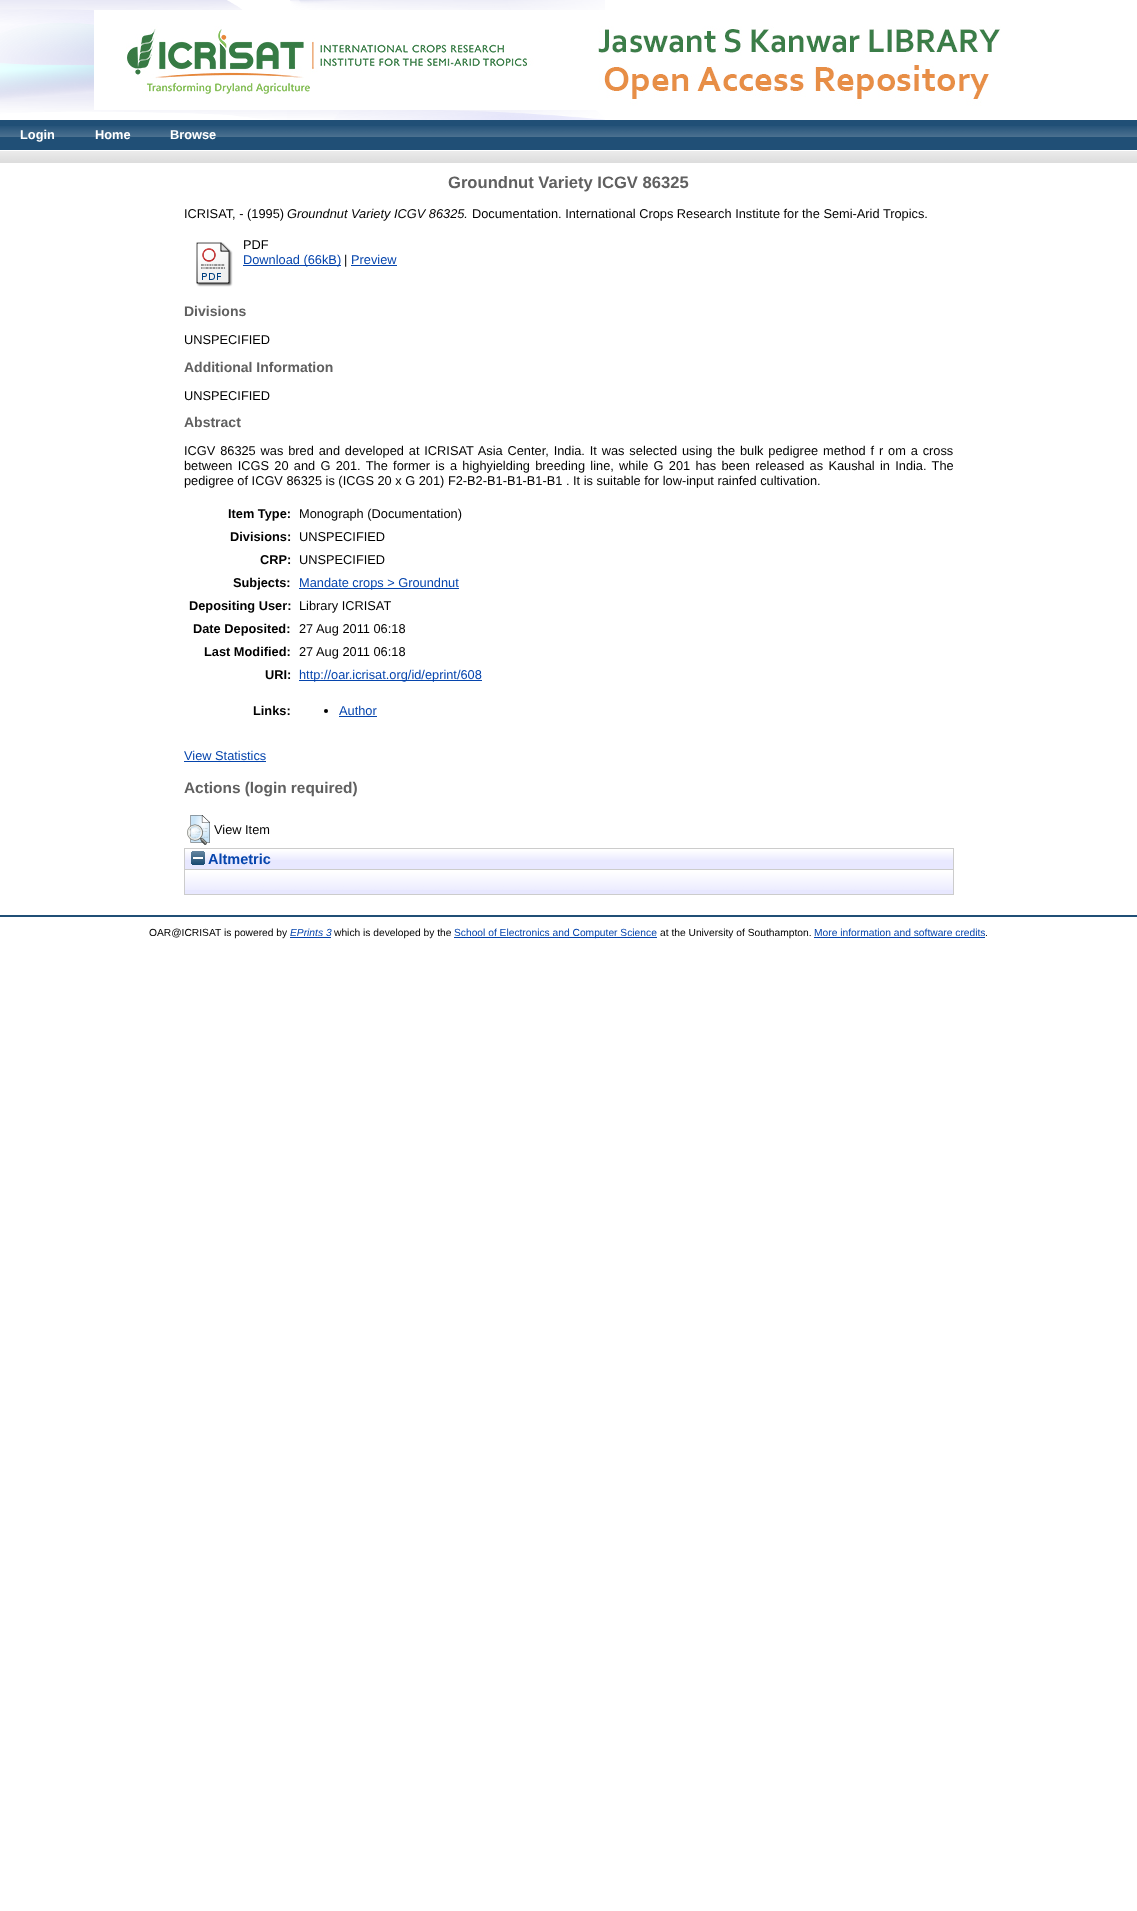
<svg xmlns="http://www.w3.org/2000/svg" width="1137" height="1911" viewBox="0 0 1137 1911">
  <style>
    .t1 { font: bold 12.8px Liberation Sans; fill: #fff; }
    .t2 { font: bold 16.6px Liberation Sans; fill: #606060; }
    .t3 { font: 12.8px Liberation Sans; fill: #000; }
    .t4 { font: italic 12.8px Liberation Sans; fill: #000; }
    .t5 { font: 12.8px Liberation Sans; fill: #0645ad; }
    .t6 { font: bold 14px Liberation Sans; fill: #606060; }
    .t7 { font: bold 12.8px Liberation Sans; fill: #000; }
    .t8 { font: bold 15.4px Liberation Sans; fill: #606060; }
    .t9 { font: bold 14.5px Liberation Sans; fill: #0645ad; }
    .t10 { font: 10.25px Liberation Sans; fill: #000; }
    .t11 { font: italic 10.25px Liberation Sans; fill: #0645ad; }
    .t12 { font: 10.25px Liberation Sans; fill: #0645ad; }
  </style>
  <rect width="100%" height="100%" fill="#fff"/>
  <image x="0" y="0" width="605" height="120" href="images/1.png"/>
  <image x="94" y="10" width="907" height="100" href="images/2.png"/>
  <rect x="0" y="120" width="1137" height="30" fill="#204f76"/>
  <image x="0" y="126" width="1137" height="11" href="images/3.png"/>
  <text x="20" y="139" class="t1">Login</text>
  <text x="95" y="139" class="t1">Home</text>
  <text x="170" y="139" class="t1">Browse</text>
  <rect x="0" y="151" width="1137" height="12" fill="#ccc"/>
  <image x="0" y="151" width="1137" height="12" href="images/4.png"/>
  <text x="448" y="188" class="t2">Groundnut Variety ICGV 86325</text>
  <text x="184" y="218" class="t3">ICRISAT, - (1995)</text>
  <text x="287" y="218" class="t4">Groundnut Variety ICGV 86325.</text>
  <text x="472" y="218" class="t3">Documentation. International Crops Research Institute for the Semi-Arid Tropics.</text>
  <image x="196" y="242" width="37" height="45" href="images/5.png"/>
  <text x="243" y="249" class="t3">PDF</text>
  <rect x="243" y="265" width="98" height="1" fill="#0645ad"/>
  <text x="243" y="264" class="t5">Download (66kB)</text>
  <text x="344" y="264" class="t3">|</text>
  <text x="351" y="264" class="t5">Preview</text>
  <rect x="351" y="265" width="46" height="1" fill="#0645ad"/>
  <text x="184" y="316" class="t6">Divisions</text>
  <text x="184" y="344" class="t3">UNSPECIFIED</text>
  <text x="184" y="372" class="t6">Additional Information</text>
  <text x="184" y="400" class="t3">UNSPECIFIED</text>
  <text x="184" y="427" class="t6">Abstract</text>
  <text x="184" y="455" word-spacing="1.3" class="t3">ICGV 86325 was bred and developed at ICRISAT Asia Center, India. It was selected using the bulk pedigree method f r om a cross</text>
  <text x="184" y="470" word-spacing="1.75" class="t3">between ICGS 20 and G 201. The former is a highyielding breeding line, while G 201 has been released as Kaushal in India. The</text>
  <text x="184" y="485" class="t3">pedigree of ICGV 86325 is (ICGS 20 x G 201) F2-B2-B1-B1-B1-B1 . It is suitable for low-input rainfed cultivation.</text>
  <text x="228" y="518" class="t7">Item Type:</text>
  <text x="299" y="518" class="t3">Monograph (Documentation)</text>
  <text x="230" y="541" class="t7">Divisions:</text>
  <text x="299" y="541" class="t3">UNSPECIFIED</text>
  <text x="260" y="564" class="t7">CRP:</text>
  <text x="299" y="564" class="t3">UNSPECIFIED</text>
  <text x="233" y="587" class="t7">Subjects:</text>
  <rect x="299" y="588" width="160" height="1" fill="#0645ad"/>
  <text x="299" y="587" class="t5">Mandate crops &gt; Groundnut</text>
  <text x="189" y="610" class="t7">Depositing User:</text>
  <text x="299" y="610" class="t3">Library ICRISAT</text>
  <text x="193" y="633" class="t7">Date Deposited:</text>
  <text x="299" y="633" class="t3">27 Aug 2011 06:18</text>
  <text x="204" y="656" class="t7">Last Modified:</text>
  <text x="299" y="656" class="t3">27 Aug 2011 06:18</text>
  <text x="265" y="679" class="t7">URI:</text>
  <rect x="299" y="680" width="183" height="1" fill="#0645ad"/>
  <text x="299" y="679" class="t5">http://oar.icrisat.org/id/eprint/608</text>
  <text x="253" y="715" class="t7">Links:</text>
  <circle cx="326" cy="711" r="2" fill="#000"/>
  <text x="339" y="715" class="t5">Author</text>
  <rect x="339" y="716" width="38" height="1" fill="#0645ad"/>
  <text x="184" y="760" class="t5">View Statistics</text>
  <rect x="184" y="761" width="82" height="1" fill="#0645ad"/>
  <text x="184" y="793" class="t8">Actions (login required)</text>
  <image x="187" y="815" width="23" height="30" href="images/6.png"/>
  <text x="214" y="834" class="t3">View Item</text>
  <rect x="185" y="850" width="768" height="19" fill="#e8e8ff"/>
  <image x="185" y="849" width="768" height="11" href="images/7.png"/>
  <rect x="184.5" y="848.5" width="769" height="21" fill="none" stroke="#ccc"/>
  <image x="191" y="851" width="14" height="14" href="images/8.png"/>
  <text x="208" y="864" class="t9">Altmetric</text>
  <rect x="185" y="871" width="768" height="23" fill="#e8e8ff"/>
  <image x="185" y="870" width="768" height="20" href="images/9.png"/>
  <rect x="953" y="870" width="1" height="25" fill="#ccc"/>
  <rect x="184" y="894" width="770" height="1" fill="#ccc"/>
  <rect x="184" y="870" width="1" height="25" fill="#ccc"/>
  <rect x="0" y="915" width="1137" height="2" fill="#204f76"/>
  <text x="149" y="936" class="t10">OAR@ICRISAT is powered by</text>
  <text x="290" y="936" class="t11">EPrints 3</text>
  <rect x="290" y="937" width="41" height="1" fill="#0645ad"/>
  <text x="334" y="936" class="t10">which is developed by the</text>
  <rect x="454" y="937" width="203" height="1" fill="#0645ad"/>
  <text x="454" y="936" class="t12">School of Electronics and Computer Science</text>
  <text x="660" y="936" class="t10">at the University of Southampton.</text>
  <text x="814" y="936" class="t12">More information and software credits</text>
  <rect x="814" y="937" width="171" height="1" fill="#0645ad"/>
  <text x="985" y="936" class="t10">.</text>
</svg>
